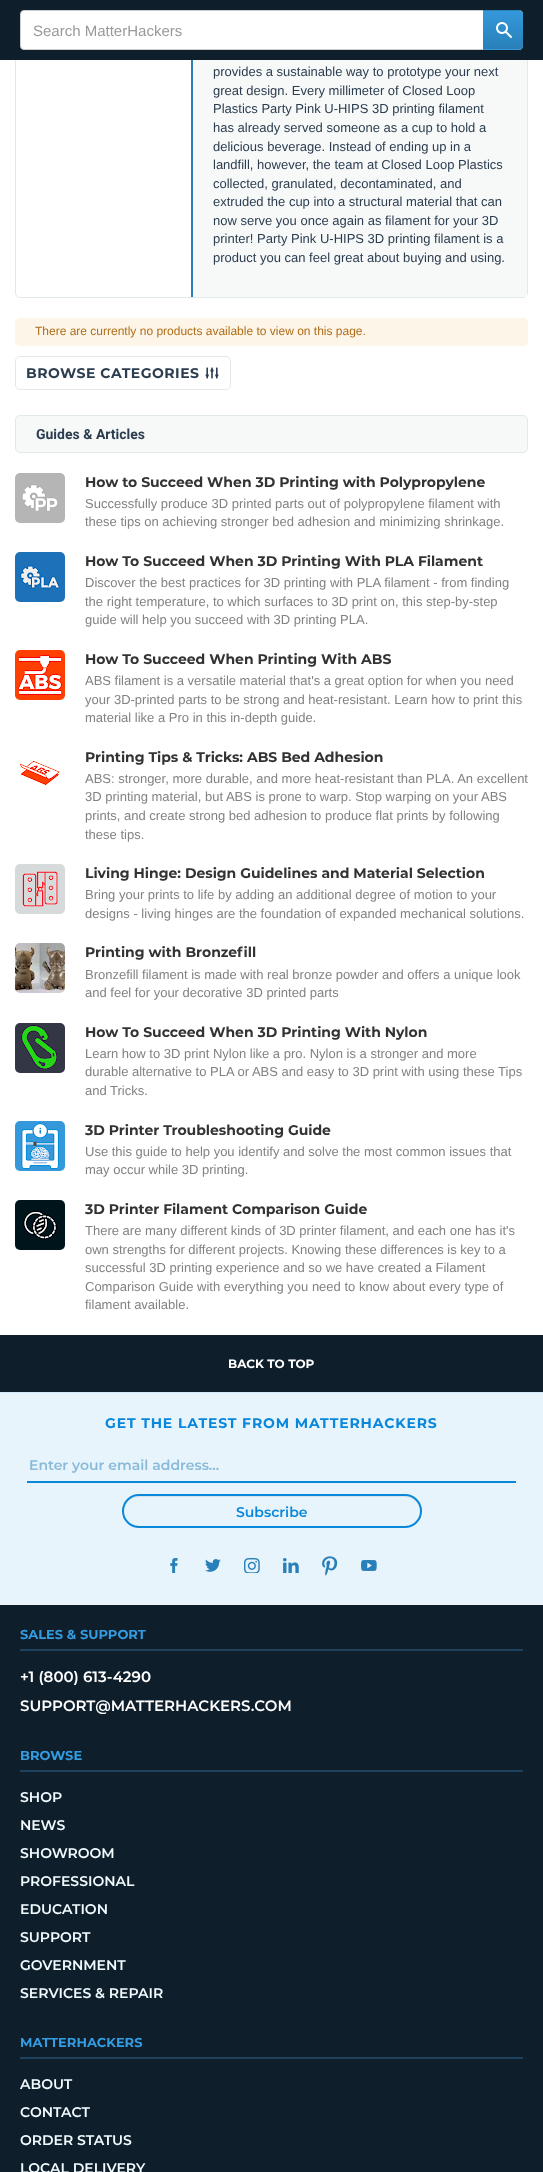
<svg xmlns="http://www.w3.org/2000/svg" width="543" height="2172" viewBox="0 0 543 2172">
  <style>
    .t1 { font: 15px Liberation Sans; fill: #999; }
    .t2 { font: 13px Liberation Sans; fill: #2c3d4f; }
    .t3 { font: 12px Liberation Sans; fill: #af6d18; }
    .t4 { font: bold 14px Montserrat; letter-spacing: 0.5px; fill: #2c3d4f; }
    .t5 { font: bold 14px Roboto; fill: #2c3d4f; }
    .t6 { font: bold 14px Montserrat; letter-spacing: -0.03px; fill: #333; }
    .t7 { font: 13px Liberation Sans; fill: #828282; }
    .t8 { font: bold 12px Montserrat; fill: #fff; }
    .t9 { font: bold 14px Montserrat; letter-spacing: 0.85px; fill: #0887db; }
    .t10 { font: 600 14px Montserrat; fill: #89bada; }
    .t11 { font: 600 14px Montserrat; fill: #0887db; }
    .t12 { font: bold 13px Montserrat; fill: #349ce1; }
    .t13 { font: 600 15px Montserrat; fill: #fff; }
    .t14 { font: 600 14px Montserrat; fill: #f2fbff; }
  </style>
  <defs>
    <clipPath id="clip1"><path d="M483 10H519C521 10 523 12 523 14V46C523 48 521 50 519 50H483Z"/></clipPath>
    <linearGradient id="g1" gradientUnits="userSpaceOnUse" x1="503" y1="-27" x2="503" y2="11"><stop offset="0" stop-color="#3498db"/><stop offset="1" stop-color="#2980b9"/></linearGradient>
    <linearGradient id="g2" gradientUnits="userSpaceOnUse" x1="503" y1="11" x2="503" y2="49"><stop offset="0" stop-color="#3498db"/><stop offset="1" stop-color="#2980b9"/></linearGradient>
    <linearGradient id="g3" gradientUnits="userSpaceOnUse" x1="503" y1="49" x2="503" y2="87"><stop offset="0" stop-color="#3498db"/><stop offset="1" stop-color="#2980b9"/></linearGradient>
  </defs>
  <rect width="100%" height="100%" fill="#fff"/>
  <rect x="15.5" y="-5.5" width="512" height="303" rx="4.5" fill="none" stroke="#e2e9e9"/>
  <rect x="0" y="0" width="543" height="60" fill="#0e1e2b"/>
  <rect x="20.5" y="10.5" width="502" height="39" rx="3.5" fill="#fff" stroke="#ccc"/>
  <text x="33" y="36" class="t1">Search MatterHackers</text>
  <g clip-path="url(#clip1)">
    <rect x="483" y="10" width="40" height="1" fill="url(#g1)"/>
    <rect x="483" y="11" width="40" height="38" fill="url(#g2)"/>
    <rect x="483" y="49" width="40" height="1" fill="url(#g3)"/>
  </g>
  <image x="496" y="22" width="16" height="16" href="images/1.png"/>
  <rect x="193" y="60" width="334" height="237" fill="#f7f9f9"/>
  <rect x="191" y="60" width="2" height="237" fill="#2980b9"/>
  <text x="213" y="76" class="t2">provides a sustainable way to prototype your next</text>
  <text x="213" y="95" class="t2">great design. Every millimeter of Closed Loop</text>
  <text x="213" y="113" class="t2">Plastics Party Pink U-HIPS 3D printing filament</text>
  <text x="213" y="132" class="t2">has already served someone as a cup to hold a</text>
  <text x="213" y="151" class="t2">delicious beverage. Instead of ending up in a</text>
  <text x="213" y="169" class="t2">landfill, however, the team at Closed Loop Plastics</text>
  <text x="213" y="188" class="t2">collected, granulated, decontaminated, and</text>
  <text x="213" y="206" class="t2">extruded the cup into a structural material that can</text>
  <text x="213" y="225" class="t2">now serve you once again as filament for your 3D</text>
  <text x="213" y="243" class="t2">printer! Party Pink U-HIPS 3D printing filament is a</text>
  <text x="213" y="262" class="t2">product you can feel great about buying and using.</text>
  <rect x="15" y="318" width="513" height="28" rx="5" fill="#fdf5e8"/>
  <text x="35" y="335" class="t3">There are currently no products available to view on this page.</text>
  <rect x="15.5" y="356.5" width="215" height="33" rx="4.5" fill="none" stroke="#e2e9e9"/>
  <text x="26" y="378" class="t4">BROWSE CATEGORIES</text>
  <image x="205" y="367" width="14" height="12" href="images/2.png"/>
  <rect x="15.5" y="415.5" width="512" height="37" rx="4.5" fill="#f7f9f9" stroke="#e2e9e9"/>
  <text x="36" y="439" class="t5">Guides &amp; Articles</text>
  <image x="15" y="473" width="50" height="50" href="images/3.png"/>
  <text x="85" y="487" class="t6">How to Succeed When 3D Printing with Polypropylene</text>
  <text x="85" y="508" class="t7">Successfully produce 3D printed parts out of polypropylene filament with</text>
  <text x="85" y="526" class="t7">these tips on achieving stronger bed adhesion and minimizing shrinkage.</text>
  <image x="15" y="552" width="50" height="50" href="images/4.png"/>
  <text x="85" y="566" class="t6">How To Succeed When 3D Printing With PLA Filament</text>
  <text x="85" y="587" class="t7">Discover the best practices for 3D printing with PLA filament - from finding</text>
  <text x="85" y="606" class="t7">the right temperature, to which surfaces to 3D print on, this step-by-step</text>
  <text x="85" y="624" class="t7">guide will help you succeed with 3D printing PLA.</text>
  <image x="15" y="650" width="50" height="50" href="images/5.png"/>
  <text x="85" y="664" class="t6">How To Succeed When Printing With ABS</text>
  <text x="85" y="685" class="t7">ABS filament is a versatile material that's a great option for when you need</text>
  <text x="85" y="704" class="t7">your 3D-printed parts to be strong and heat-resistant. Learn how to print this</text>
  <text x="85" y="722" class="t7">material like a Pro in this in-depth guide.</text>
  <image x="20" y="761" width="40" height="24" href="images/6.png"/>
  <text x="85" y="762" class="t6">Printing Tips &amp; Tricks: ABS Bed Adhesion</text>
  <text x="85" y="783" class="t7">ABS: stronger, more durable, and more heat-resistant than PLA. An excellent</text>
  <text x="85" y="801" class="t7">3D printing material, but ABS is prone to warp. Stop warping on your ABS</text>
  <text x="85" y="820" class="t7">prints, and create strong bed adhesion to produce flat prints by following</text>
  <text x="85" y="839" class="t7">these tips.</text>
  <image x="15" y="864" width="50" height="50" href="images/7.png"/>
  <text x="85" y="878" class="t6">Living Hinge: Design Guidelines and Material Selection</text>
  <text x="85" y="899" class="t7">Bring your prints to life by adding an additional degree of motion to your</text>
  <text x="85" y="918" class="t7">designs - living hinges are the foundation of expanded mechanical solutions.</text>
  <image x="15" y="943" width="50" height="50" href="images/8.png"/>
  <text x="85" y="957" class="t6">Printing with Bronzefill</text>
  <text x="85" y="979" class="t7">Bronzefill filament is made with real bronze powder and offers a unique look</text>
  <text x="85" y="997" class="t7">and feel for your decorative 3D printed parts</text>
  <image x="15" y="1023" width="50" height="50" href="images/9.png"/>
  <text x="85" y="1037" class="t6">How To Succeed When 3D Printing With Nylon</text>
  <text x="85" y="1058" class="t7">Learn how to 3D print Nylon like a pro. Nylon is a stronger and more</text>
  <text x="85" y="1076" class="t7">durable alternative to PLA or ABS and easy to 3D print with using these Tips</text>
  <text x="85" y="1095" class="t7">and Tricks.</text>
  <image x="15" y="1121" width="50" height="50" href="images/10.png"/>
  <text x="85" y="1135" class="t6">3D Printer Troubleshooting Guide</text>
  <text x="85" y="1156" class="t7">Use this guide to help you identify and solve the most common issues that</text>
  <text x="85" y="1174" class="t7">may occur while 3D printing.</text>
  <image x="15" y="1200" width="50" height="50" href="images/11.png"/>
  <text x="85" y="1214" class="t6">3D Printer Filament Comparison Guide</text>
  <text x="85" y="1235" class="t7">There are many different kinds of 3D printer filament, and each one has it's</text>
  <text x="85" y="1254" class="t7">own strengths for different projects. Knowing these differences is key to a</text>
  <text x="85" y="1272" class="t7">successful 3D printing experience and so we have created a Filament</text>
  <text x="85" y="1291" class="t7">Comparison Guide with everything you need to know about every type of</text>
  <text x="85" y="1309" class="t7">filament available.</text>
  <rect x="0" y="1335" width="543" height="57" fill="#0e1e2b"/>
  <text x="228" y="1368" class="t8">BACK TO TOP</text>
  <rect x="0" y="1393" width="543" height="211" fill="#e8f4fb"/>
  <rect x="0" y="1392" width="543" height="1" fill="#d2e9f8"/>
  <text x="105" y="1428" class="t9">GET THE LATEST FROM MATTERHACKERS</text>
  <rect x="27" y="1481" width="489" height="2" fill="#0887db"/>
  <text x="29" y="1470" class="t10">Enter your email address...</text>
  <path d="M139 1497H405C413 1497 420 1504 420 1512C420 1503 413 1496 405 1496H139C131 1496 124 1503 124 1512C124 1504 131 1497 139 1497Z" fill="#d7e2e8"/>
  <rect x="123" y="1495" width="298" height="32" rx="16" fill="none" stroke="#0887db" stroke-width="2"/>
  <text x="236" y="1517" class="t11">Subscribe</text>
  <image x="170" y="1558" width="8" height="15" href="images/12.png"/>
  <image x="205" y="1559" width="16" height="13" href="images/13.png"/>
  <image x="244" y="1558" width="16" height="15" href="images/14.png"/>
  <image x="283" y="1558" width="16" height="15" href="images/15.png"/>
  <image x="322" y="1556" width="16" height="20" href="images/16.png"/>
  <image x="361" y="1560" width="16" height="11" href="images/17.png"/>
  <rect x="0" y="1605" width="543" height="567" fill="#0e1e2b"/>
  <rect x="0" y="1604" width="543" height="1" fill="#ecf0f1"/>
  <rect x="20" y="1649" width="503" height="2" fill="#1e425e"/>
  <text x="20" y="1639" class="t12">SALES &amp; SUPPORT</text>
  <text x="20" y="1682" class="t13">+1 (800) 613-4290</text>
  <text x="20" y="1711" class="t13">SUPPORT@MATTERHACKERS.COM</text>
  <rect x="20" y="1770" width="503" height="2" fill="#1e425e"/>
  <text x="20" y="1760" class="t12">BROWSE</text>
  <text x="20" y="1802" class="t14">SHOP</text>
  <text x="20" y="1830" class="t14">NEWS</text>
  <text x="20" y="1858" class="t14">SHOWROOM</text>
  <text x="20" y="1886" class="t14">PROFESSIONAL</text>
  <text x="20" y="1914" class="t14">EDUCATION</text>
  <text x="20" y="1942" class="t14">SUPPORT</text>
  <text x="20" y="1970" class="t14">GOVERNMENT</text>
  <text x="20" y="1998" class="t14">SERVICES &amp; REPAIR</text>
  <rect x="20" y="2057" width="503" height="2" fill="#1e425e"/>
  <text x="20" y="2047" class="t12">MATTERHACKERS</text>
  <text x="20" y="2089" class="t14">ABOUT</text>
  <text x="20" y="2117" class="t14">CONTACT</text>
  <text x="20" y="2145" class="t14">ORDER STATUS</text>
  <text x="20" y="2173" class="t14">LOCAL DELIVERY</text>
</svg>
